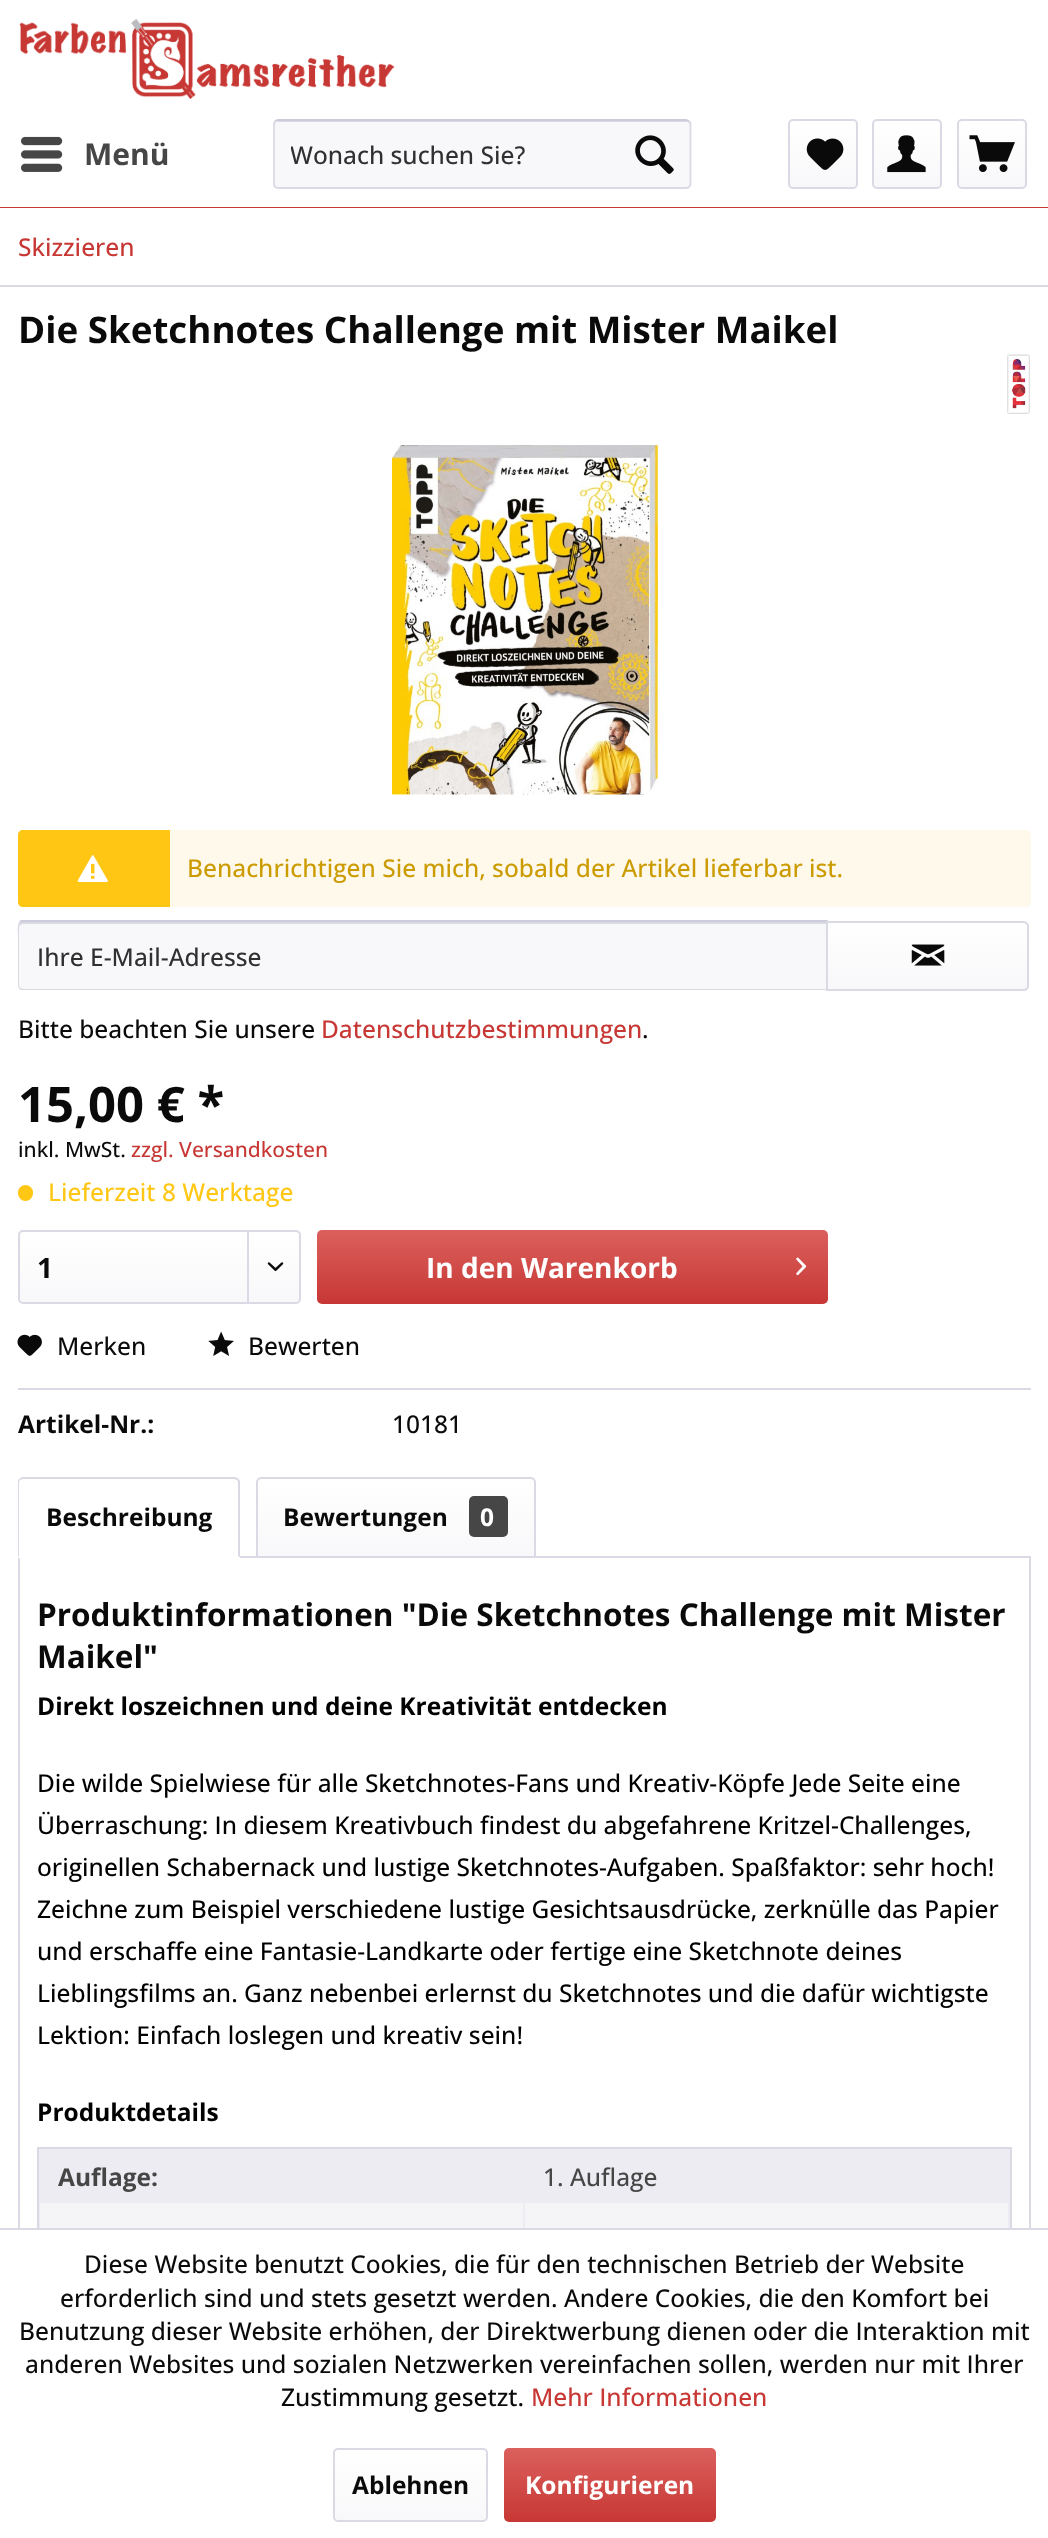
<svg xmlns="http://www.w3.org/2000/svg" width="1048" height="2538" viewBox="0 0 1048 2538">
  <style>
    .t1 { font: bold 30px Open Sans; fill: #464646; }
    .t2 { font: 500 24.5px Open Sans; fill: #303030; }
    .t3 { font: 500 24.5px Open Sans; fill: #c73734; }
    .t4 { font: bold 36.75px Open Sans; fill: #0a0a0a; }
    .t5 { font: 500 24.5px Open Sans; fill: #cc9b00; }
    .t6 { font: 500 24.5px Open Sans; fill: #0a0a0a; }
    .t7 { font: bold 49px Open Sans; fill: #0a0a0a; }
    .t8 { font: 500 21px Open Sans; fill: #0a0a0a; }
    .t9 { font: 500 21px Open Sans; fill: #c73734; }
    .t10 { font: 500 24.5px Open Sans; fill: #ffc714; }
    .t11 { font: bold 28px Open Sans; fill: #0a0a0a; }
    .t12 { font: bold 28px Open Sans; fill: #fff; }
    .t13 { font: bold 24.5px Open Sans; fill: #0a0a0a; }
    .t14 { font: bold 24.5px Open Sans; fill: #fff; }
    .t15 { font: bold 31.5px Open Sans; fill: #0a0a0a; }
    .t16 { font: bold 24.5px Open Sans; fill: #000; }
    .t17 { font: 500 24.5px Open Sans; fill: #000; }
    .t18 { font: bold 24.5px Open Sans; fill: #464646; }
    .t19 { font: 500 24.5px Open Sans; fill: #464646; }
  </style>
  <defs>
    <clipPath id="clip1"><rect x="291" y="138" width="325" height="34"/></clipPath>
    <linearGradient id="g1" gradientUnits="userSpaceOnUse" x1="823" y1="121" x2="823" y2="187"><stop offset="0" stop-color="#fff"/><stop offset="1" stop-color="#f8f8fa"/></linearGradient>
    <linearGradient id="g2" gradientUnits="userSpaceOnUse" x1="907" y1="121" x2="907" y2="187"><stop offset="0" stop-color="#fff"/><stop offset="1" stop-color="#f8f8fa"/></linearGradient>
    <linearGradient id="g3" gradientUnits="userSpaceOnUse" x1="992" y1="121" x2="992" y2="187"><stop offset="0" stop-color="#fff"/><stop offset="1" stop-color="#f8f8fa"/></linearGradient>
    <linearGradient id="g4" gradientUnits="userSpaceOnUse" x1="928" y1="922" x2="928" y2="989"><stop offset="0" stop-color="#fff"/><stop offset="1" stop-color="#f8f8fa"/></linearGradient>
    <linearGradient id="g5" gradientUnits="userSpaceOnUse" x1="159" y1="1232" x2="159" y2="1302"><stop offset="0" stop-color="#fff"/><stop offset="1" stop-color="#f8f8fa"/></linearGradient>
    <linearGradient id="g6" gradientUnits="userSpaceOnUse" x1="572" y1="1230" x2="572" y2="1304"><stop offset="0" stop-color="#db605d"/><stop offset="1" stop-color="#c73734"/></linearGradient>
    <linearGradient id="g7" gradientUnits="userSpaceOnUse" x1="396" y1="1479" x2="396" y2="1556"><stop offset="0" stop-color="#fff"/><stop offset="1" stop-color="#f8f8fa"/></linearGradient>
    <linearGradient id="g8" gradientUnits="userSpaceOnUse" x1="410" y1="2450" x2="410" y2="2520"><stop offset="0" stop-color="#fff"/><stop offset="1" stop-color="#f8f8fa"/></linearGradient>
    <linearGradient id="g9" gradientUnits="userSpaceOnUse" x1="610" y1="2448" x2="610" y2="2522"><stop offset="0" stop-color="#db605d"/><stop offset="1" stop-color="#c73734"/></linearGradient>
  </defs>
  <rect width="100%" height="100%" fill="#fff"/>
  <rect x="0" y="207" width="1048" height="1" fill="#c73734"/>
  <image x="19" y="18" width="376" height="81" href="images/1.png"/>
  <image x="21" y="136" width="42" height="36" href="images/2.png"/>
  <text x="84" y="165" class="t1">Menü</text>
  <rect x="273" y="119" width="418" height="70" rx="5" fill="#f8f8fa"/>
  <path d="M278 122H686C688 122 690 124 690 126V125C690 123 688 121 686 121H279C277 121 275 123 275 125V126C275 124 276 122 278 122Z" fill="#dadae5"/>
  <path d="M275 121L278 120H686L689 121" fill="none" stroke="#cbcbdb" stroke-width="1.8"/>
  <path d="M689 121C690 122 690.5 123 690.5 124V184C690.5 185 690 186 689 187C688.5 187.5 687 188 686 188H278C277 188 276 187.5 275 187C274.5 186 274 185 274 184V124C274 123 274.5 122 275 121" fill="none" stroke="#dadae5" stroke-width="1.8"/>
  <g clip-path="url(#clip1)">
    <text x="290" y="164" class="t2">Wonach suchen Sie?</text>
  </g>
  <image x="635" y="135" width="39" height="39" href="images/3.png"/>
  <rect x="789" y="121" width="67" height="66" rx="4" fill="url(#g1)"/>
  <rect x="789" y="120" width="68" height="68" rx="4" fill="none" stroke="#dadae5" stroke-width="2"/>
  <image x="806" y="138" width="38" height="32" href="images/4.png"/>
  <rect x="873" y="121" width="67" height="66" rx="4" fill="url(#g2)"/>
  <rect x="873" y="120" width="68" height="68" rx="4" fill="none" stroke="#dadae5" stroke-width="2"/>
  <image x="887" y="135" width="39" height="38" href="images/5.png"/>
  <rect x="959" y="121" width="67" height="66" rx="4" fill="url(#g3)"/>
  <rect x="958" y="120" width="68" height="68" rx="4" fill="none" stroke="#dadae5" stroke-width="2"/>
  <image x="969" y="135" width="46" height="37" href="images/6.png"/>
  <rect x="0" y="285" width="1048" height="2" fill="#dadae5"/>
  <text x="18" y="256" class="t3">Skizzieren</text>
  <text x="18" y="343" class="t4">Die Sketchnotes Challenge mit Mister Maikel</text>
  <image x="1007" y="354" width="23" height="60" href="images/7.png"/>
  <image x="392" y="445" width="266" height="350" href="images/8.png"/>
  <rect x="18" y="830" width="1013" height="77" rx="5" fill="#fef9eb"/>
  <path d="M23 830H170V907H23C20 907 18 905 18 902V835C18 832 20 830 23 830Z" fill="#ffc714"/>
  <image x="77" y="855" width="31" height="27" href="images/9.png"/>
  <text x="187" y="877" class="t5">Benachrichtigen Sie mich, sobald der Artikel lieferbar ist.</text>
  <path d="M23 922H826V989H23C21 989 19 987 19 985V926C19 924 21 922 23 922Z" fill="#f8f8fa"/>
  <path d="M23 924H826V922H23C19 922 19 925 19 928C19 926 21 924 23 924Z" fill="#dadae5"/>
  <path d="M23 922L20 923L19 922L21 920H828L826 922Z" fill="#cbcbdb"/>
  <path d="M828 920V990L826 989V922Z" fill="#dadae5"/>
  <path d="M827 990H23C22 990 20 990 19 989L20 988L23 989H826Z" fill="#dadae5"/>
  <path d="M19 989L18 986V936C18 933 17 926 19 922L20 923L19 926V985L20 988Z" fill="#dadae5"/>
  <text x="37" y="966" class="t2">Ihre E-Mail-Adresse</text>
  <path d="M828 922H1023C1025 922 1027 924 1027 926V985C1027 987 1025 989 1023 989H828Z" fill="url(#g4)"/>
  <path d="M827 922H1024C1026 922 1028 924 1028 926V986C1028 988 1026 990 1024 990H827Z" fill="none" stroke="#dadae5" stroke-width="2"/>
  <image x="911" y="944" width="34" height="22" href="images/10.png"/>
  <text x="18" y="1038" class="t6">Bitte beachten Sie unsere</text>
  <text x="321" y="1038" class="t3">Datenschutzbestimmungen</text>
  <text x="642" y="1038" class="t6">.</text>
  <text x="18" y="1122" class="t7">15,00 € *</text>
  <text x="18" y="1157" class="t8">inkl. MwSt.</text>
  <text x="131" y="1157" class="t9">zzgl. Versandkosten</text>
  <rect x="18" y="1185" width="15" height="16" rx="7.5" fill="#ffc714"/>
  <text x="48" y="1201" class="t10">Lieferzeit 8 Werktage</text>
  <rect x="19" y="1232" width="280" height="70" rx="4" fill="url(#g5)"/>
  <rect x="19" y="1231" width="281" height="72" rx="4" fill="none" stroke="#dadae5" stroke-width="2"/>
  <text x="37" y="1278" class="t11">1</text>
  <rect x="247" y="1232" width="2" height="70" fill="#dadae5"/>
  <image x="267" y="1262" width="17" height="9" href="images/11.png"/>
  <rect x="317" y="1230" width="511" height="74" rx="5" fill="url(#g6)"/>
  <text x="426" y="1278" class="t12">In den Warenkorb</text>
  <image x="796" y="1257" width="11" height="19" href="images/12.png"/>
  <rect x="18" y="1388" width="1013" height="2" fill="#dadae5"/>
  <image x="17" y="1334" width="25" height="22" href="images/13.png"/>
  <text x="57" y="1355" class="t6">Merken</text>
  <image x="208" y="1331" width="26" height="25" href="images/14.png"/>
  <text x="248" y="1355" class="t6">Bewerten</text>
  <text x="18" y="1433" class="t13">Artikel-Nr.:</text>
  <text x="392" y="1433" class="t6">10181</text>
  <rect x="19" y="1557" width="1011" height="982" fill="none" stroke="#dadae5" stroke-width="2"/>
  <path d="M23 1477H235C238 1477 240 1479 240 1482V1558H18V1482C18 1479 20 1477 23 1477Z" fill="#fff"/>
  <path d="M23 1477C21 1477 20 1478 19 1479L20 1480L23 1479H234L237 1480L238 1478C237 1478 236 1477 234 1477Z" fill="#dadae5"/>
  <path d="M238 1478L240 1481V1558L238 1556V1482L237 1480Z" fill="#dadae5"/>
  <path d="M240 1558H18L19 1556H238Z" fill="#fff"/>
  <path d="M19 1479C18 1479 18 1481 18 1482V1557L19 1556V1482L20 1480Z" fill="#dadae5"/>
  <text x="46" y="1526" class="t13">Beschreibung</text>
  <path d="M261 1479H530C532 1479 534 1481 534 1483V1556H257V1483C257 1481 259 1479 261 1479Z" fill="url(#g7)"/>
  <path d="M261 1478H531C533 1478 535 1480 535 1482V1557H257V1482C257 1480 259 1478 261 1478Z" fill="none" stroke="#dadae5" stroke-width="2"/>
  <text x="283" y="1526" class="t13">Bewertungen</text>
  <rect x="469" y="1496" width="39" height="41" rx="5" fill="#464646"/>
  <text x="480" y="1526" class="t14">0</text>
  <text x="37" y="1626" class="t15">Produktinformationen "Die Sketchnotes Challenge mit Mister</text>
  <text x="37" y="1668" class="t15">Maikel"</text>
  <text x="37" y="1715" class="t16">Direkt loszeichnen und deine Kreativität entdecken</text>
  <text x="37" y="1792" class="t17">Die wilde Spielwiese für alle Sketchnotes-Fans und Kreativ-Köpfe Jede Seite eine</text>
  <text x="37" y="1834" class="t17">Überraschung: In diesem Kreativbuch findest du abgefahrene Kritzel-Challenges,</text>
  <text x="37" y="1876" class="t17">originellen Schabernack und lustige Sketchnotes-Aufgaben. Spaßfaktor: sehr hoch!</text>
  <text x="37" y="1918" class="t17">Zeichne zum Beispiel verschiedene lustige Gesichtsausdrücke, zerknülle das Papier</text>
  <text x="37" y="1960" class="t17">und erschaffe eine Fantasie-Landkarte oder fertige eine Sketchnote deines</text>
  <text x="37" y="2002" class="t17">Lieblingsfilms an. Ganz nebenbei erlernst du Sketchnotes und die dafür wichtigste</text>
  <text x="37" y="2044" class="t17">Lektion: Einfach loslegen und kreativ sein!</text>
  <text x="37" y="2121" class="t16">Produktdetails</text>
  <rect x="38" y="2148" width="973" height="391" fill="none" stroke="#dadae5" stroke-width="2"/>
  <rect x="39" y="2149" width="971" height="79" fill="#ececf2"/>
  <text x="58" y="2186" class="t18">Auflage:</text>
  <text x="543" y="2186" class="t19">1. Auflage</text>
  <rect x="40" y="2203" width="483" height="25" fill="#f5f5f8"/>
  <rect x="525" y="2203" width="483" height="25" fill="#f5f5f8"/>
  <rect x="18" y="2230" width="1013" height="308" fill="#fff"/>
  <rect x="0" y="2228" width="1048" height="2" fill="#dadae5"/>
  <text x="84" y="2273" class="t6">Diese Website benutzt Cookies, die für den technischen Betrieb der Website</text>
  <text x="60" y="2307" class="t6">erforderlich sind und stets gesetzt werden. Andere Cookies, die den Komfort bei</text>
  <text x="19" y="2340" class="t6">Benutzung dieser Website erhöhen, der Direktwerbung dienen oder die Interaktion mit</text>
  <text x="25" y="2373" class="t6">anderen Websites und sozialen Netzwerken vereinfachen sollen, werden nur mit Ihrer</text>
  <text x="281" y="2406" class="t6">Zustimmung gesetzt.</text>
  <text x="531" y="2406" class="t3">Mehr Informationen</text>
  <rect x="334" y="2450" width="153" height="70" rx="4" fill="url(#g8)"/>
  <rect x="334" y="2449" width="153" height="72" rx="4" fill="none" stroke="#dadae5" stroke-width="2"/>
  <text x="352" y="2494" class="t13">Ablehnen</text>
  <rect x="504" y="2448" width="212" height="74" rx="5" fill="url(#g9)"/>
  <text x="525" y="2494" class="t14">Konfigurieren</text>
</svg>
